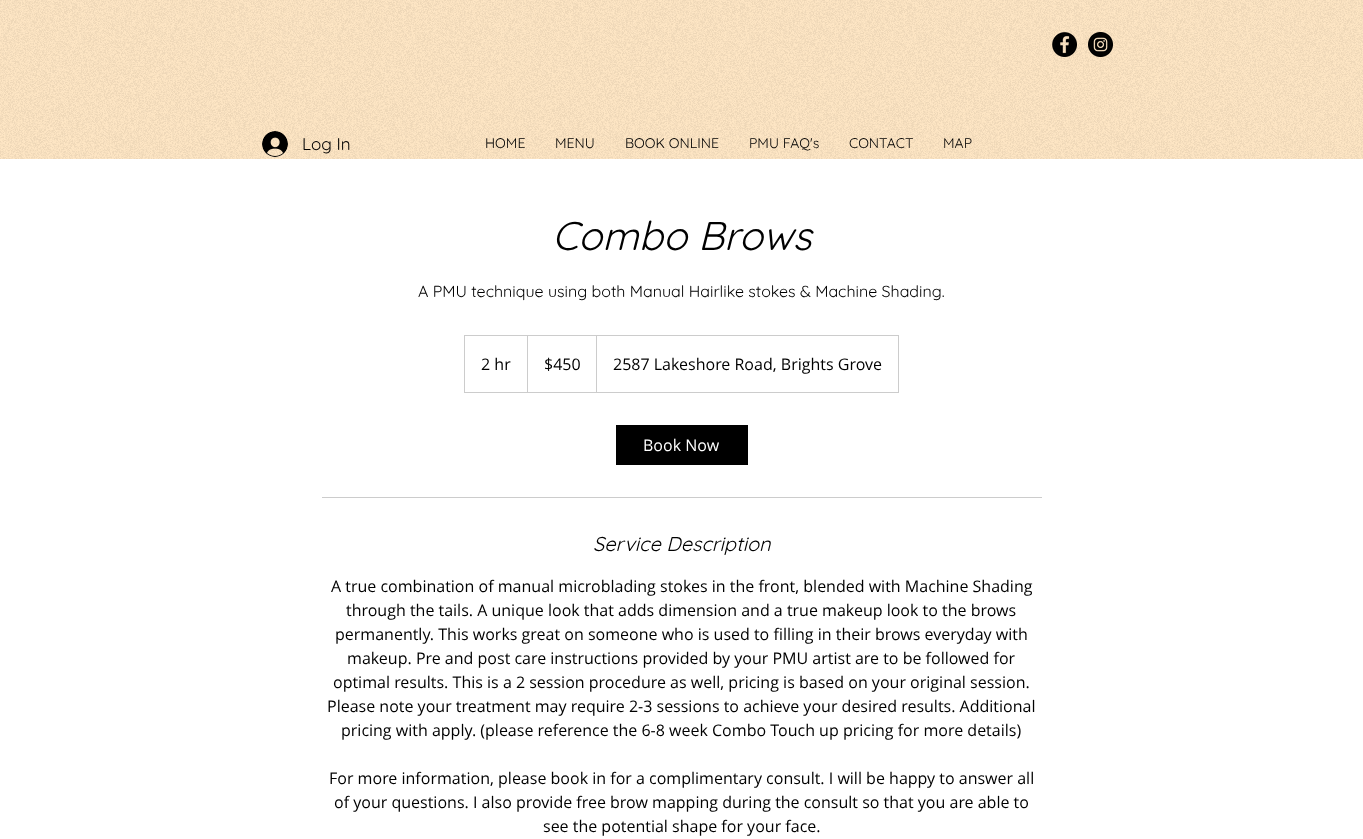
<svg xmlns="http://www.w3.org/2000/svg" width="1363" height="839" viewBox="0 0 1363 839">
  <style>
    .t1 { font: 17px Quicksand; fill: #000; }
    .t2 { font: 14px Quicksand; fill: #000; }
    .t3 { font: italic 40px Quicksand; fill: #000; }
    .t4 { font: 16px Quicksand; fill: #000; }
    .t5 { font: 16px Open Sans; fill: #000; }
    .t6 { font: 16px Open Sans; fill: #fff; }
    .t7 { font: italic 20px Quicksand; fill: #000; }
  </style>
  <rect width="100%" height="100%" fill="#fff"/>
  <rect x="0" y="0" width="1363" height="159" fill="#fee6c4"/>
  <image x="0" y="0" width="1363" height="159" href="images/1.png"/>
  <image x="1052" y="32" width="25" height="25" href="images/2.png"/>
  <image x="1088" y="32" width="25" height="25" href="images/3.png"/>
  <image x="262" y="131" width="26" height="26" href="images/4.png"/>
  <text x="302" y="150" class="t1">Log In</text>
  <text x="485" y="148" class="t2">HOME</text>
  <text x="555" y="148" class="t2">MENU</text>
  <text x="625" y="148" class="t2">BOOK ONLINE</text>
  <text x="749" y="148" class="t2">PMU FAQ's</text>
  <text x="849" y="148" class="t2">CONTACT</text>
  <text x="943" y="148" class="t2">MAP</text>
  <text x="552" y="250" class="t3">Combo Brows</text>
  <text x="418" y="297" class="t4">A PMU technique using both Manual Hairlike stokes &amp; Machine Shading.</text>
  <rect x="464.5" y="335.5" width="434" height="57" fill="none" stroke="#ccc"/>
  <text x="481" y="370" class="t5">2 hr</text>
  <path d="M527 392V335L528 336V392Z" fill="#ccc"/>
  <text x="544" y="370" class="t5">$450</text>
  <path d="M596 392V335L597 336V392Z" fill="#ccc"/>
  <text x="613" y="370" class="t5">2587 Lakeshore Road, Brights Grove</text>
  <rect x="616" y="425" width="132" height="40" fill="#000"/>
  <text x="643" y="451" class="t6">Book Now</text>
  <rect x="322" y="497" width="720" height="1" fill="#ccc"/>
  <text x="593" y="551" class="t7">Service Description</text>
  <text x="331" y="592" class="t5">A true combination of manual microblading stokes in the front, blended with Machine Shading</text>
  <text x="346" y="616" class="t5">through the tails. A unique look that adds dimension and a true makeup look to the brows</text>
  <text x="335" y="640" class="t5">permanently. This works great on someone who is used to filling in their brows everyday with</text>
  <text x="347" y="664" class="t5">makeup. Pre and post care instructions provided by your PMU artist are to be followed for</text>
  <text x="333" y="688" class="t5">optimal results. This is a 2 session procedure as well, pricing is based on your original session.</text>
  <text x="327" y="712" class="t5">Please note your treatment may require 2-3 sessions to achieve your desired results. Additional</text>
  <text x="341" y="736" class="t5">pricing with apply. (please reference the 6-8 week Combo Touch up pricing for more details)</text>
  <text x="329" y="784" class="t5">For more information, please book in for a complimentary consult. I will be happy to answer all</text>
  <text x="334" y="808" class="t5">of your questions. I also provide free brow mapping during the consult so that you are able to</text>
  <text x="543" y="832" class="t5">see the potential shape for your face.</text>
</svg>
